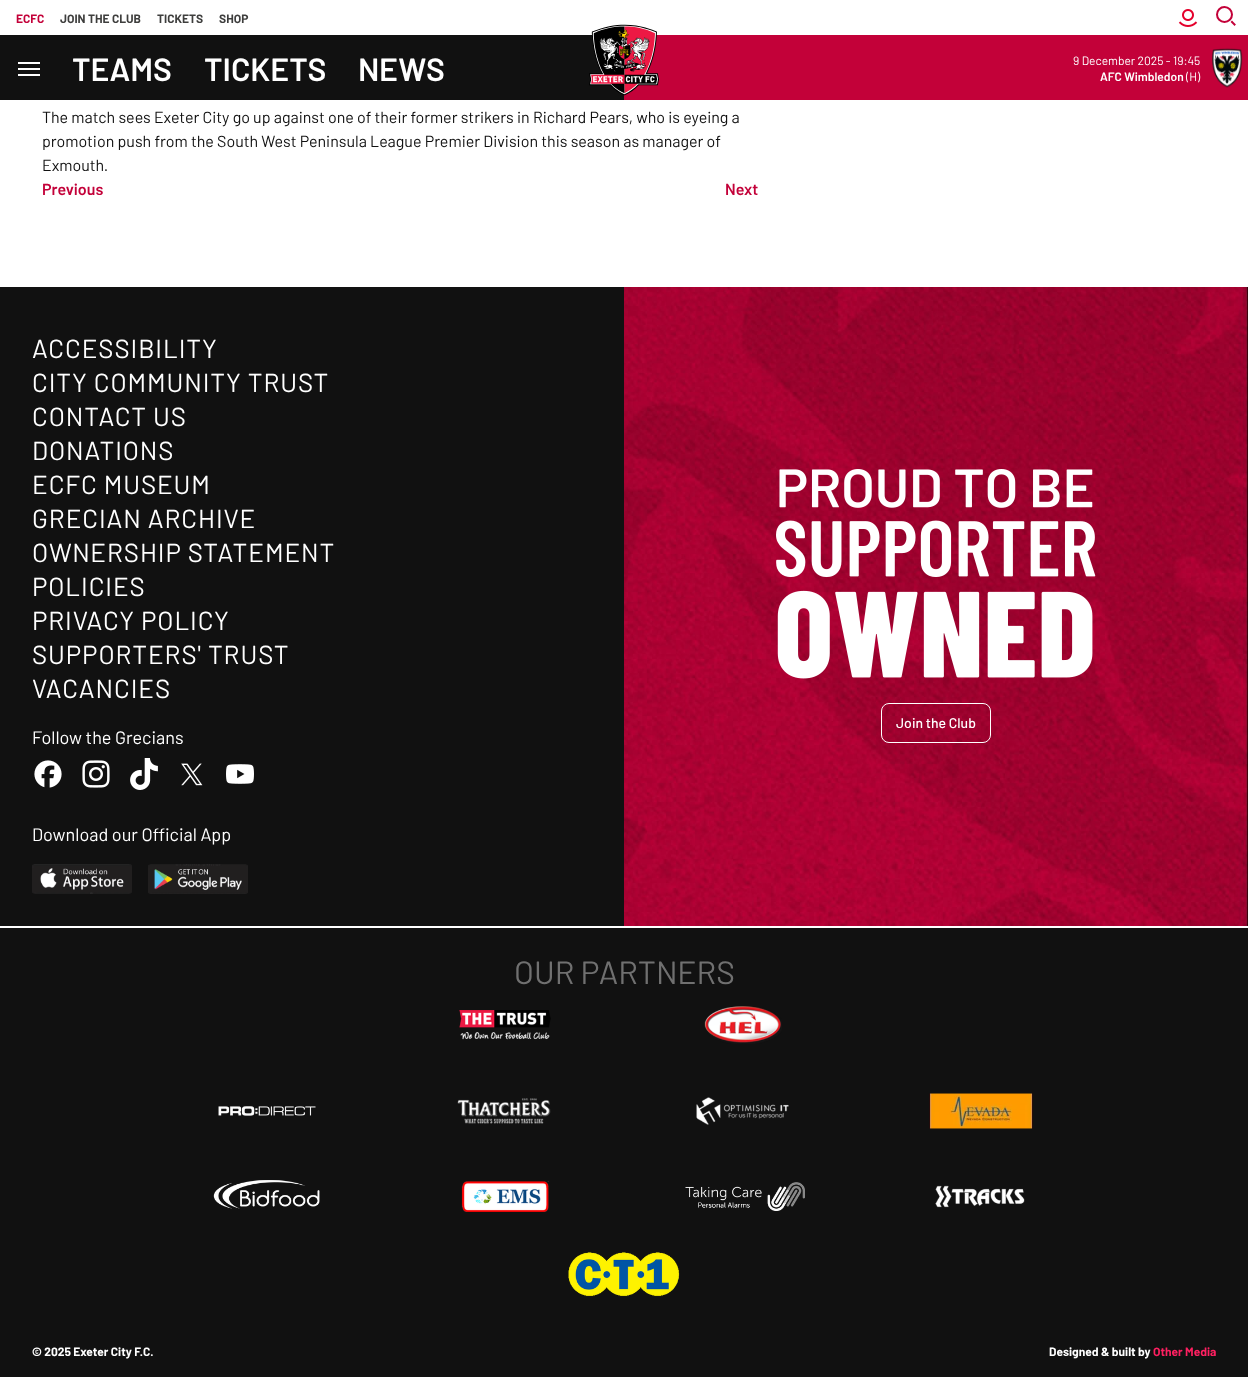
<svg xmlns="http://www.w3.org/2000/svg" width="1248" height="1377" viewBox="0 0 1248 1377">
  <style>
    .t1 { font: bold 12px Barlow; fill: #c30139; }
    .t2 { font: bold 12px Barlow; fill: #3e3e3d; }
    .t3 { font: 600 32px Barlow; fill: #fff; }
    .t4 { font: 12px Barlow; fill: #fff; }
    .t5 { font: 600 12px Barlow; fill: #fff; }
    .t6 { font: 16px Barlow; fill: #111; }
    .t7 { font: 600 16px Barlow; fill: #c30139; }
    .t8 { font: 26px Barlow; letter-spacing: 0.9px; fill: #fff; }
    .t9 { font: 18px Barlow; fill: #fff; }
    .t10 { font: 500 14px Barlow; fill: #fff; }
    .t11 { font: 32px Barlow; fill: #707070; }
    .t12 { font: bold 12px Barlow; fill: #fff; }
    .t13 { font: bold 12px Barlow; fill: #ff2061; }
  </style>
  <rect width="100%" height="100%" fill="#fff"/>
  <text x="16" y="23" class="t1">ECFC</text>
  <text x="60" y="23" class="t2">JOIN THE CLUB</text>
  <text x="157" y="23" class="t2">TICKETS</text>
  <text x="219" y="23" class="t2">SHOP</text>
  <image x="1178" y="9" width="20" height="18" href="images/1.png"/>
  <circle cx="1224.5" cy="14.5" r="7.5" fill="none" stroke="#c30139" stroke-width="2"/>
  <path d="M1234.5 24.5L1232 22" fill="none" stroke="#c30139" stroke-width="2" stroke-linecap="square"/>
  <rect x="0" y="35" width="624" height="65" fill="#111"/>
  <rect x="624" y="35" width="624" height="65" fill="#c30139"/>
  <image x="589" y="24" width="70" height="72" href="images/2.png"/>
  <rect x="18" y="68" width="22" height="2" fill="#fff"/>
  <rect x="18" y="62" width="22" height="2" fill="#fff"/>
  <rect x="18" y="74" width="22" height="2" fill="#fff"/>
  <text x="72" y="81" class="t3">TEAMS</text>
  <text x="204" y="81" class="t3">TICKETS</text>
  <text x="358" y="81" class="t3">NEWS</text>
  <text x="1073" y="65" class="t4">9 December 2025 - 19:45</text>
  <image x="1212" y="48" width="31" height="40" href="images/3.png"/>
  <text x="1100" y="81" class="t5">AFC Wimbledon</text>
  <text x="1186" y="81" class="t4">(H)</text>
  <text x="42" y="123" class="t6">The match sees Exeter City go up against one of their former strikers in Richard Pears, who is eyeing a</text>
  <text x="42" y="147" class="t6">promotion push from the South West Peninsula League Premier Division this season as manager of</text>
  <text x="42" y="171" class="t6">Exmouth.</text>
  <text x="42" y="195" class="t7">Previous</text>
  <text x="725" y="195" class="t7">Next</text>
  <rect x="0" y="287" width="624" height="639" fill="#111"/>
  <text x="32" y="358" class="t8">ACCESSIBILITY</text>
  <text x="32" y="392" class="t8">CITY COMMUNITY TRUST</text>
  <text x="32" y="426" class="t8">CONTACT US</text>
  <text x="32" y="460" class="t8">DONATIONS</text>
  <text x="32" y="494" class="t8">ECFC MUSEUM</text>
  <text x="32" y="528" class="t8">GRECIAN ARCHIVE</text>
  <text x="32" y="562" class="t8">OWNERSHIP STATEMENT</text>
  <text x="32" y="596" class="t8">POLICIES</text>
  <text x="32" y="630" class="t8">PRIVACY POLICY</text>
  <text x="32" y="664" class="t8">SUPPORTERS' TRUST</text>
  <text x="32" y="698" class="t8">VACANCIES</text>
  <text x="32" y="744" class="t9">Follow the Grecians</text>
  <image x="34" y="760" width="28" height="28" href="images/4.png"/>
  <image x="82" y="760" width="28" height="28" href="images/5.png"/>
  <image x="130" y="758" width="28" height="32" href="images/6.png"/>
  <image x="181" y="763" width="22" height="23" href="images/7.png"/>
  <image x="226" y="764" width="28" height="20" href="images/8.png"/>
  <text x="32" y="841" class="t9">Download our Official App</text>
  <image x="32" y="864" width="100" height="30" href="images/9.png"/>
  <image x="148" y="864" width="100" height="30" href="images/10.png"/>
  <image x="624" y="287" width="624" height="639" href="images/11.png"/>
  <image x="776" y="469" width="320" height="210" href="images/12.png"/>
  <rect x="881.5" y="703.5" width="109" height="39" rx="7.5" fill="none" stroke="#fff"/>
  <text x="896" y="728" class="t10">Join the Club</text>
  <rect x="0" y="928" width="1248" height="449" fill="#111"/>
  <text x="514" y="984" class="t11">OUR PARTNERS</text>
  <image x="459" y="1010" width="92" height="30" href="images/13.png"/>
  <image x="704" y="1006" width="78" height="38" href="images/14.png"/>
  <image x="218" y="1106" width="98" height="10" href="images/15.png"/>
  <image x="457" y="1098" width="94" height="26" href="images/16.png"/>
  <image x="696" y="1097" width="93" height="28" href="images/17.png"/>
  <image x="929" y="1093" width="104" height="36" href="images/18.png"/>
  <image x="213" y="1180" width="107" height="29" href="images/19.png"/>
  <image x="461" y="1181" width="88" height="31" href="images/20.png"/>
  <image x="685" y="1182" width="120" height="29" href="images/21.png"/>
  <image x="935" y="1185" width="90" height="23" href="images/22.png"/>
  <image x="568" y="1252" width="112" height="45" href="images/23.png"/>
  <text x="32" y="1356" class="t12">© 2025 Exeter City F.C.</text>
  <text x="1049" y="1356" class="t12">Designed &amp; built by</text>
  <text x="1153" y="1356" class="t13">Other Media</text>
</svg>
